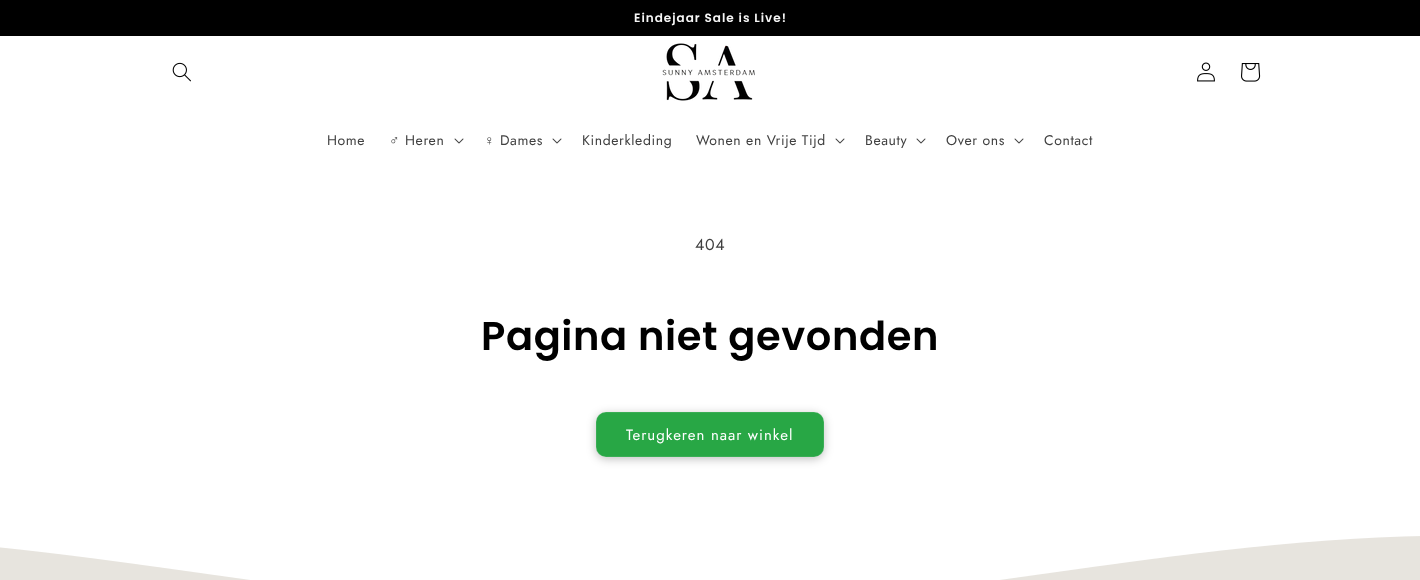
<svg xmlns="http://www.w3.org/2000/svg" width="1420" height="580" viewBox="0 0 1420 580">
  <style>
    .t1 { font: 600 12px Poppins; letter-spacing: 1px; fill: #f5f5f5; }
    .t2 { font: 14px Jost; letter-spacing: 0.6px; fill: #404040; }
    .t3 { font: 14px Liberation Sans; letter-spacing: 0.6px; fill: #404040; }
    .t4 { font: 16px Jost; letter-spacing: 0.6px; fill: #404040; }
    .t5 { font: 600 40px Poppins; letter-spacing: 0.6px; fill: #000; }
    .t6 { font: 15px Jost; letter-spacing: 1px; fill: #fff; }
  </style>
  <rect width="100%" height="100%" fill="#fff"/>
  <rect x="0" y="0" width="1420" height="36" fill="#000"/>
  <text x="634" y="22" class="t1">Eindejaar Sale is Live!</text>
  <image x="172" y="62" width="19" height="20" href="images/1.png"/>
  <image x="662" y="43" width="93" height="58" href="images/2.png"/>
  <image x="1197" y="62" width="18" height="20" href="images/3.png"/>
  <image x="1241" y="63" width="20" height="19" href="images/4.png"/>
  <text x="327" y="145" class="t2">Home</text>
  <text x="389" y="145" class="t3">♂</text>
  <text x="405" y="145" class="t2">Heren</text>
  <image x="454" y="138" width="10" height="6" href="images/5.png"/>
  <text x="484" y="145" class="t3">♀</text>
  <text x="500" y="145" class="t2">Dames</text>
  <image x="552" y="138" width="10" height="6" href="images/5.png"/>
  <text x="582" y="145" class="t2">Kinderkleding</text>
  <text x="696" y="145" class="t2">Wonen en Vrije Tijd</text>
  <image x="835" y="138" width="10" height="6" href="images/5.png"/>
  <text x="865" y="145" class="t2">Beauty</text>
  <image x="916" y="138" width="10" height="6" href="images/5.png"/>
  <text x="946" y="145" class="t2">Over ons</text>
  <image x="1014" y="138" width="10" height="6" href="images/5.png"/>
  <text x="1044" y="145" class="t2">Contact</text>
  <text x="695" y="250" class="t4">404</text>
  <text x="481" y="350" class="t5">Pagina niet gevonden</text>
  <rect x="596" y="414" width="228" height="45" rx="10" fill="#00000040" filter="blur(5px)"/>
  <rect x="596" y="412" width="228" height="45" rx="10" fill="#28a745"/>
  <rect x="596.15" y="412.15" width="227.7" height="44.7" rx="9.85" fill="none" stroke="#ffffff73" stroke-width="0.3"/>
  <text x="626" y="440" class="t6">Terugkeren naar winkel</text>
  <image x="0" y="536" width="1420" height="44" href="images/6.png"/>
</svg>
